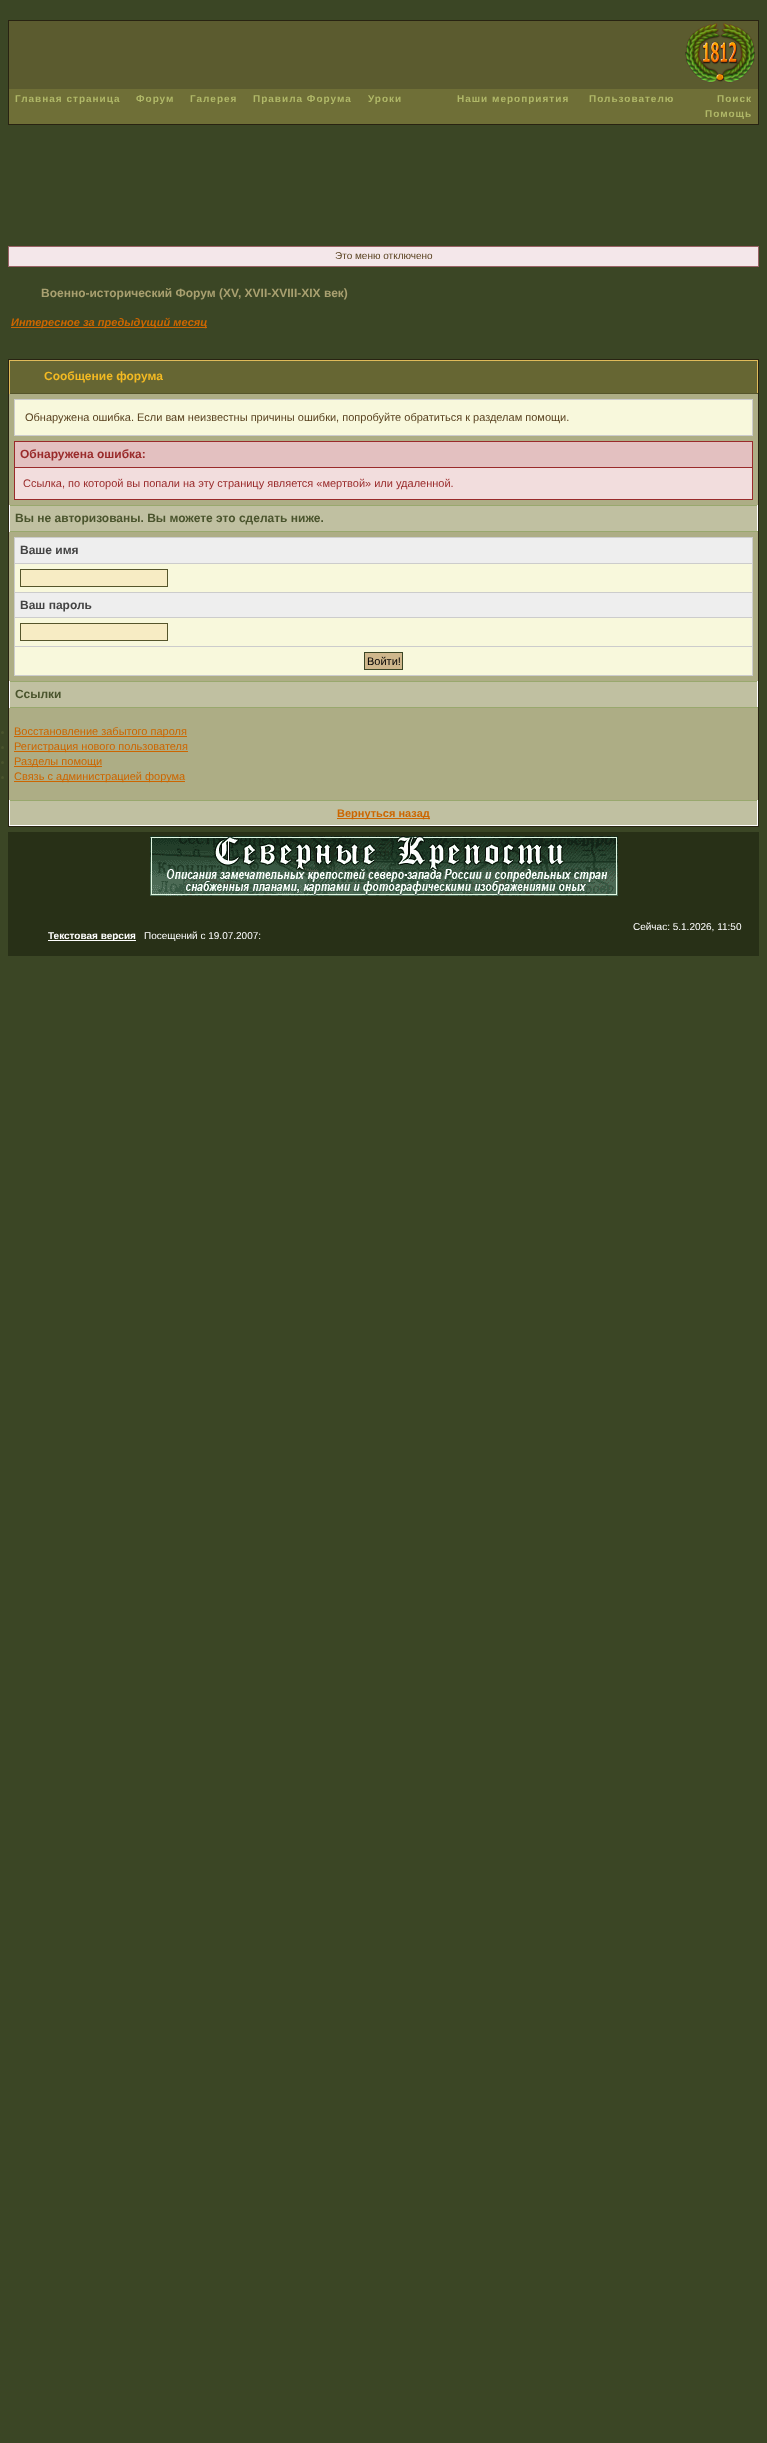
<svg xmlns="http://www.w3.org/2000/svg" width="767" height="2443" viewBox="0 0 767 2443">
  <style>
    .t1 { font: bold 10px Liberation Sans; letter-spacing: 1px; fill: #b0b868; }
    .t2 { font: 10px Liberation Sans; fill: #594220; }
    .t3 { font: bold 12px Liberation Sans; fill: #a9a070; }
    .t4 { font: italic bold 11px Liberation Sans; fill: #c60; }
    .t5 { font: bold 12px Liberation Sans; fill: #f3ba23; }
    .t6 { font: 11px Liberation Sans; fill: #594220; }
    .t7 { font: bold 12px Liberation Sans; fill: #992a2a; }
    .t8 { font: 11px Liberation Sans; fill: #992a2a; }
    .t9 { font: bold 12px Liberation Sans; fill: #4a542d; }
    .t10 { font: bold 12px Liberation Sans; fill: #444; }
    .t11 { font: 11px Liberation Sans; fill: #000; }
    .t12 { font: 11px Liberation Sans; fill: #c60; }
    .t13 { font: bold 11px Liberation Sans; fill: #c60; }
    .t14 { font: 10px Liberation Sans; fill: #fff; }
    .t15 { font: bold 10px Liberation Sans; fill: #fff; }
  </style>
  <rect width="100%" height="100%" fill="#3b4625"/>
  <rect x="8.5" y="20.5" width="750" height="104" fill="none" stroke="#282312"/>
  <rect x="9" y="21" width="749" height="68" fill="#5b5b2f"/>
  <image x="685" y="23" width="70" height="60" href="images/1.png"/>
  <rect x="9" y="89" width="749" height="35" fill="#6f6f37"/>
  <text x="15" y="102" class="t1">Главная страница</text>
  <text x="136" y="102" class="t1">Форум</text>
  <text x="190" y="102" class="t1">Галерея</text>
  <text x="253" y="102" class="t1">Правила Форума</text>
  <text x="368" y="102" class="t1">Уроки</text>
  <text x="457" y="102" class="t1">Наши мероприятия</text>
  <text x="589" y="102" class="t1">Пользователю</text>
  <text x="717" y="102" class="t1">Поиск</text>
  <text x="705" y="117" class="t1">Помощь</text>
  <rect x="8.5" y="246.5" width="750" height="20" fill="#f4e7ea" stroke="#986265"/>
  <text x="335" y="259" class="t2">Это меню отключено</text>
  <text x="41" y="297" class="t3">Военно-исторический Форум (XV, XVII-XVIII-XIX век)</text>
  <rect x="11" y="327" width="196" height="1" fill="#c60"/>
  <text x="11" y="326" class="t4">Интересное за предыдущий месяц</text>
  <rect x="9" y="394" width="749" height="406" fill="#adad85"/>
  <rect x="8.5" y="359.5" width="750" height="467" fill="none" stroke="#282312"/>
  <rect x="10" y="361" width="747" height="32" fill="#663"/>
  <rect x="9" y="360" width="749" height="1" fill="#e0bb5a"/>
  <rect x="757" y="360" width="1" height="34" fill="#e0bb5a"/>
  <rect x="9" y="393" width="749" height="1" fill="#55552b"/>
  <rect x="9" y="360" width="1" height="34" fill="#e0bb5a"/>
  <text x="44" y="380" class="t5">Сообщение форума</text>
  <rect x="14.5" y="399.5" width="738" height="36" fill="#f8f8dc" stroke="#ccc"/>
  <text x="25" y="421" class="t6">Обнаружена ошибка. Если вам неизвестны причины ошибки, попробуйте обратиться к разделам помощи.</text>
  <rect x="15" y="468" width="737" height="31" fill="#f2dddd"/>
  <rect x="752" y="441" width="1" height="59" fill="#992a2a"/>
  <rect x="14" y="499" width="739" height="1" fill="#992a2a"/>
  <rect x="14" y="441" width="1" height="59" fill="#992a2a"/>
  <rect x="15" y="442" width="737" height="25" fill="#e3c0c0"/>
  <rect x="15" y="441" width="737" height="1" fill="#992a2a"/>
  <rect x="15" y="467" width="737" height="1" fill="#992a2a"/>
  <text x="20" y="458" class="t7">Обнаружена ошибка:</text>
  <text x="23" y="487" class="t8">Ссылка, по которой вы попали на эту страницу является «мертвой» или удаленной.</text>
  <rect x="10" y="506" width="747" height="25" fill="#c0c0a1"/>
  <rect x="9" y="505" width="749" height="1" fill="#99a86e"/>
  <rect x="757" y="505" width="1" height="27" fill="#fff"/>
  <rect x="9" y="531" width="749" height="1" fill="#99a86e"/>
  <rect x="9" y="505" width="1" height="27" fill="#fff"/>
  <text x="15" y="522" class="t9">Вы не авторизованы. Вы можете это сделать ниже.</text>
  <rect x="15" y="564" width="737" height="111" fill="#f8f8dc"/>
  <rect x="752" y="537" width="1" height="139" fill="#ccc"/>
  <rect x="14" y="675" width="739" height="1" fill="#ccc"/>
  <rect x="14" y="537" width="1" height="139" fill="#ccc"/>
  <rect x="15" y="538" width="737" height="25" fill="#eee"/>
  <rect x="15" y="537" width="737" height="1" fill="#ccc"/>
  <rect x="15" y="563" width="737" height="1" fill="#ccc"/>
  <text x="20" y="554" class="t10">Ваше имя</text>
  <rect x="20.5" y="569.5" width="147" height="17" fill="#f7ecc4" stroke="#55552b"/>
  <rect x="15" y="593" width="737" height="24" fill="#eee"/>
  <rect x="15" y="592" width="737" height="1" fill="#ccc"/>
  <rect x="15" y="617" width="737" height="1" fill="#ccc"/>
  <text x="20" y="609" class="t10">Ваш пароль</text>
  <rect x="20.5" y="623.5" width="147" height="17" fill="#f7ecc4" stroke="#55552b"/>
  <rect x="15" y="646" width="737" height="1" fill="#ccc"/>
  <rect x="364.5" y="652.5" width="38" height="17" fill="#cfb78c" stroke="#3b4625"/>
  <text x="367" y="665" class="t11">Войти!</text>
  <rect x="10" y="682" width="747" height="25" fill="#c0c0a1"/>
  <rect x="9" y="681" width="749" height="1" fill="#99a86e"/>
  <rect x="757" y="681" width="1" height="27" fill="#fff"/>
  <rect x="9" y="707" width="749" height="1" fill="#99a86e"/>
  <rect x="9" y="681" width="1" height="27" fill="#fff"/>
  <text x="15" y="698" class="t9">Ссылки</text>
  <circle cx="2.5" cy="732.5" r="1.5" fill="#4a542d"/>
  <rect x="14" y="736" width="173" height="1" fill="#c60"/>
  <text x="14" y="735" class="t12">Восстановление забытого пароля</text>
  <circle cx="2.5" cy="747.5" r="1.5" fill="#4a542d"/>
  <rect x="14" y="751" width="174" height="1" fill="#c60"/>
  <text x="14" y="750" class="t12">Регистрация нового пользователя</text>
  <circle cx="2.5" cy="762.5" r="1.5" fill="#4a542d"/>
  <rect x="14" y="766" width="88" height="1" fill="#c60"/>
  <text x="14" y="765" class="t12">Разделы помощи</text>
  <circle cx="2.5" cy="777.5" r="1.5" fill="#4a542d"/>
  <rect x="14" y="781" width="171" height="1" fill="#c60"/>
  <text x="14" y="780" class="t12">Связь с администрацией форума</text>
  <rect x="10" y="801" width="747" height="24" fill="#c0c0a1"/>
  <rect x="9" y="800" width="749" height="1" fill="#99a86e"/>
  <rect x="757" y="800" width="1" height="26" fill="#fff"/>
  <rect x="9" y="825" width="749" height="1" fill="#fff"/>
  <rect x="9" y="800" width="1" height="26" fill="#fff"/>
  <rect x="337" y="818" width="93" height="1" fill="#c60"/>
  <text x="337" y="817" class="t13">Вернуться назад</text>
  <rect x="8" y="832" width="751" height="124" fill="#283017"/>
  <image x="150" y="836" width="468" height="60" href="images/2.png"/>
  <text x="633" y="930" class="t14">Сейчас: 5.1.2026, 11:50</text>
  <rect x="48" y="940" width="88" height="1" fill="#fff"/>
  <text x="48" y="939" class="t15">Текстовая версия</text>
  <text x="144" y="939" class="t14">Посещений с 19.07.2007:</text>
</svg>
